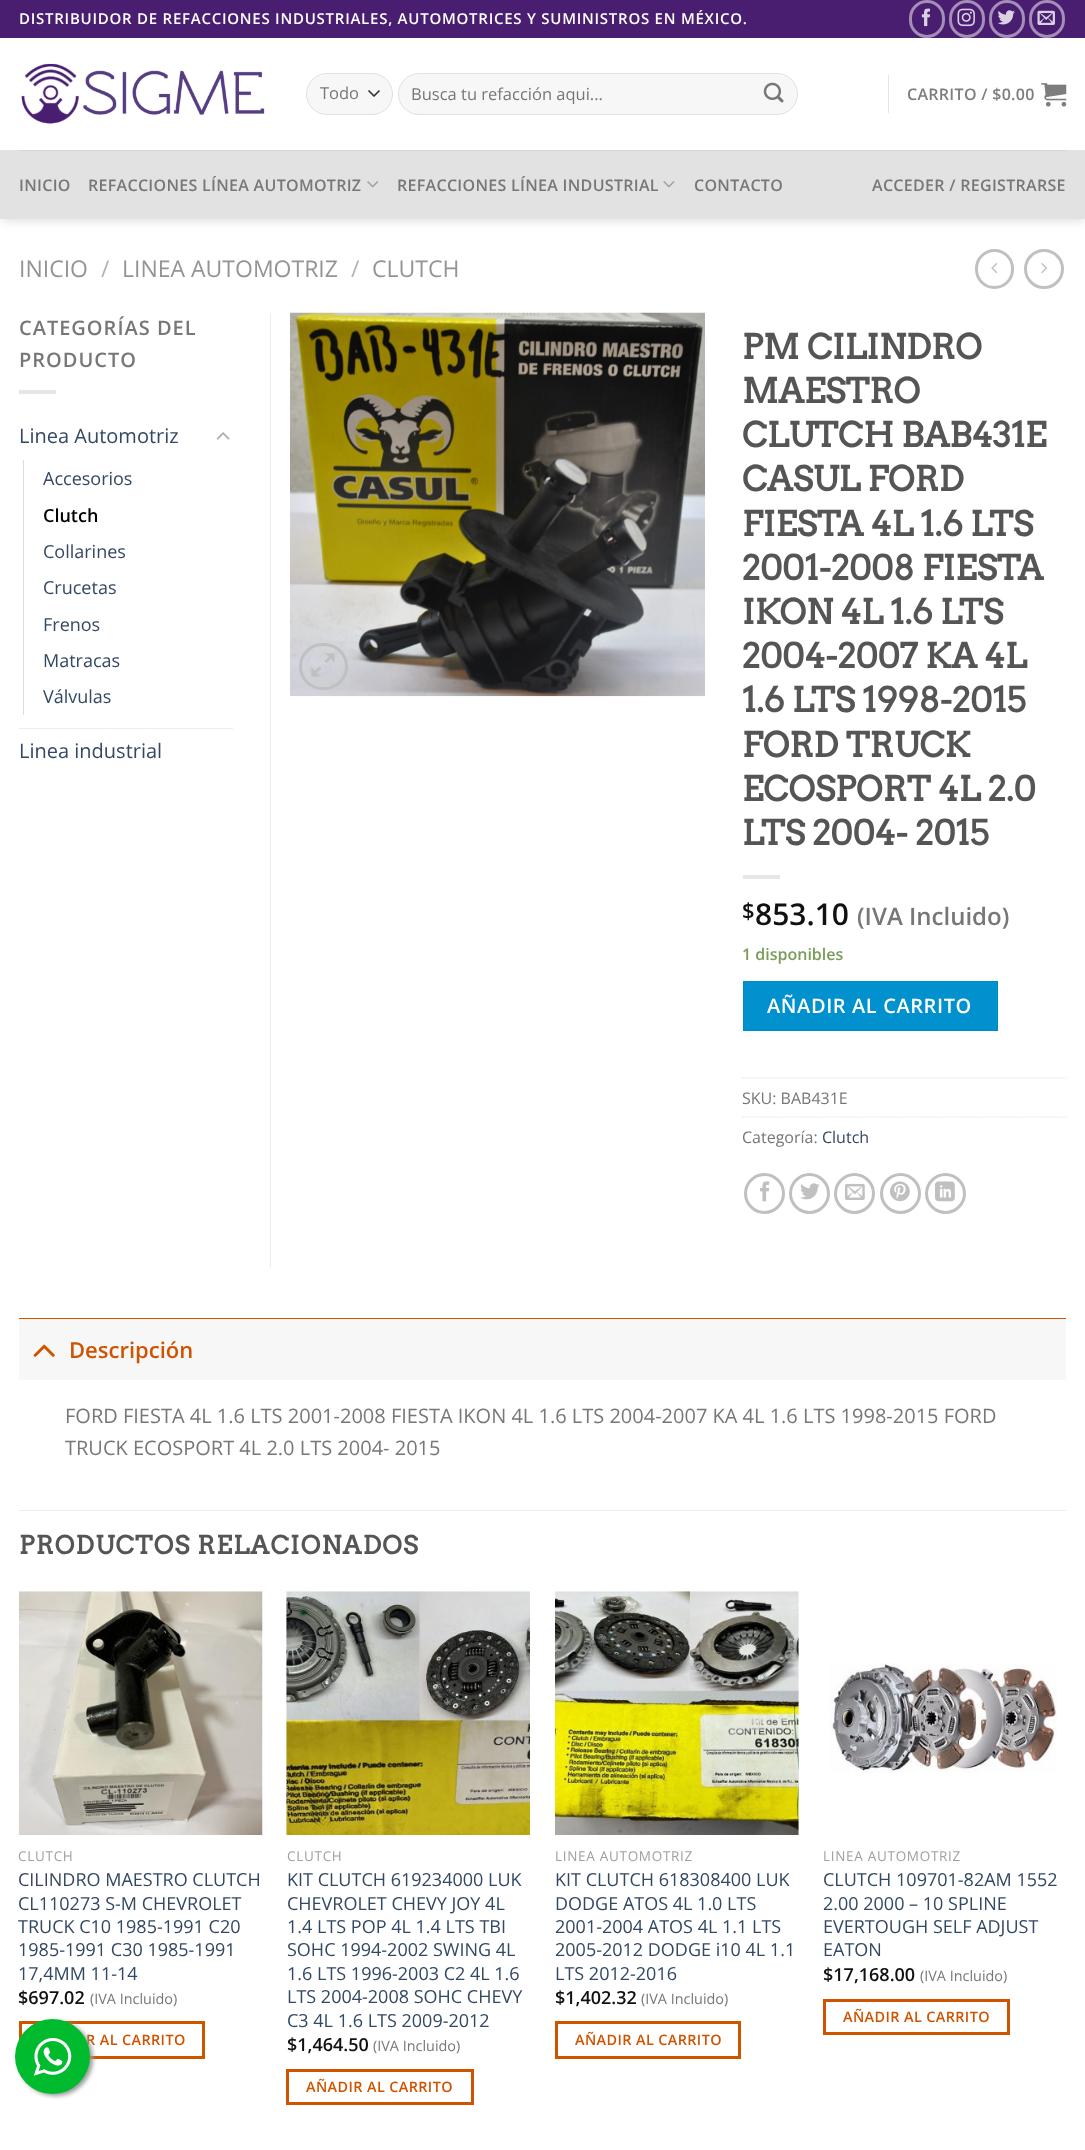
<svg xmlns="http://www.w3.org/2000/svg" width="1085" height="2150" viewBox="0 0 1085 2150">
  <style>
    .t1 { font: 600 15px Open Sans; letter-spacing: 0.75px; fill: #fff; }
    .t2 { font: 16.5px Open Sans; fill: #777; }
    .t3 { font: 600 16px Open Sans; letter-spacing: 0.3px; fill: #7d7d7d; }
    .t4 { font: 600 16px Open Sans; letter-spacing: 0.3px; fill: #777; }
    .t5 { font: 23px Open Sans; fill: #949494; }
    .t6 { font: 23px Open Sans; fill: #b2b2b2; }
    .t7 { font: 600 20px Open Sans; letter-spacing: 1px; fill: #777; }
    .t8 { font: 20px Open Sans; fill: #334862; }
    .t9 { font: 18px Open Sans; fill: #334862; }
    .t10 { font: 600 18px Open Sans; fill: #000; }
    .t11 { font: bold 34px Arvo; fill: #555; }
    .t12 { font: 600 22px Open Sans; fill: #111; }
    .t13 { font: 600 30px Open Sans; fill: #111; }
    .t14 { font: 600 24px Open Sans; fill: #777; }
    .t15 { font: 600 16px Open Sans; fill: #7a9c59; }
    .t16 { font: 600 20px Open Sans; letter-spacing: 0.6px; fill: #fff; }
    .t17 { font: 16px Open Sans; fill: #777; }
    .t18 { font: 16px Open Sans; fill: #334862; }
    .t19 { font: 600 22px Open Sans; fill: #ce5400; }
    .t20 { font: 20px Open Sans; fill: #777; }
    .t21 { font: bold 25px Arvo; letter-spacing: 1.25px; fill: #555; }
    .t22 { font: 13.5px Open Sans; letter-spacing: 0.7px; fill: #a0a0a0; }
    .t23 { font: 600 18px Open Sans; fill: #111; }
    .t24 { font: 14.4px Open Sans; fill: #777; }
    .t25 { font: 600 14.4px Open Sans; letter-spacing: 0.4px; fill: #ce5400; }
  </style>
  <rect width="100%" height="100%" fill="#fff"/>
  <rect x="1" y="1" width="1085" height="219" fill="#00000026" filter="blur(6px)"/>
  <rect x="0" y="0" width="1085" height="38" fill="#491d70"/>
  <text x="19" y="24" class="t1">DISTRIBUIDOR DE REFACCIONES INDUSTRIALES, AUTOMOTRICES Y SUMINISTROS EN MÉXICO.</text>
  <rect x="910.5" y="1.5" width="33" height="35" rx="16.5" fill="none" stroke="#a48eb8" stroke-width="3"/>
  <image x="921" y="8" width="9" height="19" href="images/1.png"/>
  <rect x="950.5" y="1.5" width="33" height="35" rx="16.5" fill="none" stroke="#a48eb8" stroke-width="3"/>
  <image x="957" y="8" width="18" height="19" href="images/2.png"/>
  <rect x="990.5" y="1.5" width="33" height="35" rx="16.5" fill="none" stroke="#a48eb8" stroke-width="3"/>
  <image x="997" y="10" width="18" height="15" href="images/3.png"/>
  <rect x="1030.5" y="1.5" width="33" height="35" rx="16.5" fill="none" stroke="#a48eb8" stroke-width="3"/>
  <image x="1037" y="10" width="18" height="15" href="images/4.png"/>
  <rect x="0" y="38" width="1085" height="112" fill="#fff"/>
  <image x="21" y="63" width="244" height="61" href="images/5.png"/>
  <rect x="306" y="73" width="87" height="42" rx="21" fill="#f7f7f7"/>
  <path d="M369 91L374 96L379 91" fill="none" stroke="#333" stroke-width="1.7" stroke-linecap="round" stroke-linejoin="round"/>
  <rect x="306.5" y="73.5" width="86" height="41" rx="20.5" fill="none" stroke="#00000017"/>
  <text x="320" y="99" class="t2">Todo</text>
  <rect x="398" y="73" width="400" height="42" rx="21" fill="#f7f7f7"/>
  <rect x="398.5" y="73.5" width="399" height="41" rx="20.5" fill="none" stroke="#00000017"/>
  <text x="411" y="100" class="t2">Busca tu refacción aqui...</text>
  <image x="763" y="82" width="21" height="21" href="images/6.png"/>
  <rect x="888" y="75" width="1" height="38" fill="#e6e6e6"/>
  <text x="907" y="100" class="t3">CARRITO / $0.00</text>
  <image x="1041" y="83" width="26" height="24" href="images/7.png"/>
  <rect x="0" y="150" width="1085" height="69" fill="#e2e2e2"/>
  <rect x="19" y="150" width="1047" height="1" fill="#d7d7d7"/>
  <text x="19" y="191" class="t4">INICIO</text>
  <text x="88" y="191" class="t4">REFACCIONES LÍNEA AUTOMOTRIZ</text>
  <image x="367" y="181" width="12" height="7" href="images/8.png"/>
  <text x="397" y="191" class="t4">REFACCIONES LÍNEA INDUSTRIAL</text>
  <image x="663" y="181" width="12" height="7" href="images/9.png"/>
  <text x="694" y="191" class="t4">CONTACTO</text>
  <text x="872" y="191" class="t4">ACCEDER / REGISTRARSE</text>
  <text x="19" y="277" class="t5">INICIO</text>
  <text x="101" y="277" class="t6">/</text>
  <text x="122" y="277" class="t5">LINEA AUTOMOTRIZ</text>
  <text x="351" y="277" class="t6">/</text>
  <text x="372" y="277" class="t5">CLUTCH</text>
  <rect x="976.5" y="250.5" width="36" height="37" rx="18" fill="none" stroke="#c0c0c0" stroke-width="3"/>
  <image x="991" y="263" width="7" height="11" href="images/10.png"/>
  <circle cx="1044" cy="269" r="18.5" fill="none" stroke="#c0c0c0" stroke-width="3"/>
  <image x="1041" y="263" width="7" height="11" href="images/11.png"/>
  <rect x="270" y="313" width="1" height="955" fill="#ececec"/>
  <text x="19" y="335" class="t7">CATEGORÍAS DEL</text>
  <text x="19" y="367" class="t7">PRODUCTO</text>
  <rect x="19" y="390" width="37" height="4" fill="#e6e6e6"/>
  <text x="19" y="443" class="t8">Linea Automotriz</text>
  <image x="216" y="432" width="14" height="8" href="images/12.png"/>
  <rect x="23" y="460" width="1" height="255" fill="#ddd"/>
  <text x="43" y="485" class="t9">Accesorios</text>
  <text x="43" y="522" class="t10">Clutch</text>
  <text x="43" y="558" class="t9">Collarines</text>
  <text x="43" y="594" class="t9">Crucetas</text>
  <text x="43" y="631" class="t9">Frenos</text>
  <text x="43" y="667" class="t9">Matracas</text>
  <text x="43" y="703" class="t9">Válvulas</text>
  <rect x="19" y="728" width="214" height="1" fill="#ececec"/>
  <text x="19" y="758" class="t8">Linea industrial</text>
  <image x="290" y="312" width="415" height="385" href="images/13.png"/>
  <rect x="300.5" y="644.5" width="46" height="44" rx="22" fill="none" stroke="#c0c0c0" stroke-width="3"/>
  <image x="311" y="653" width="24" height="24" href="images/14.png"/>
  <text x="742" y="359" class="t11">PM CILINDRO</text>
  <text x="742" y="403" class="t11">MAESTRO</text>
  <text x="742" y="447" class="t11">CLUTCH BAB431E</text>
  <text x="742" y="491" class="t11">CASUL FORD</text>
  <text x="742" y="536" class="t11">FIESTA 4L 1.6 LTS</text>
  <text x="742" y="580" class="t11">2001-2008 FIESTA</text>
  <text x="742" y="624" class="t11">IKON 4L 1.6 LTS</text>
  <text x="742" y="668" class="t11">2004-2007 KA 4L</text>
  <text x="742" y="712" class="t11">1.6 LTS 1998-2015</text>
  <text x="742" y="757" class="t11">FORD TRUCK</text>
  <text x="742" y="801" class="t11">ECOSPORT 4L 2.0</text>
  <text x="742" y="845" class="t11">LTS 2004- 2015</text>
  <rect x="743" y="875" width="37" height="4" fill="#e6e6e6"/>
  <text x="742" y="919" class="t12">$</text>
  <text x="755" y="925" class="t13">853.10</text>
  <text x="857" y="925" class="t14">(IVA Incluido)</text>
  <text x="742" y="960" class="t15">1 disponibles</text>
  <rect x="743.5" y="981.5" width="254" height="49" fill="#0091ce" stroke="#008ac4"/>
  <text x="767" y="1013" class="t16">AÑADIR AL CARRITO</text>
  <path d="M742.5 1078H1066" fill="none" stroke="#ddd" stroke-width="1.2" stroke-dasharray="1.25 1.25"/>
  <text x="742" y="1104" class="t17">SKU: BAB431E</text>
  <path d="M742.5 1117H1066" fill="none" stroke="#ddd" stroke-width="1.2" stroke-dasharray="1.25 1.25"/>
  <text x="742" y="1143" class="t17">Categoría:</text>
  <text x="822" y="1143" class="t18">Clutch</text>
  <circle cx="764.5" cy="1193.5" r="19" fill="none" stroke="#c0c0c0" stroke-width="3"/>
  <image x="760" y="1181" width="10" height="21" href="images/15.png"/>
  <circle cx="809.5" cy="1193.5" r="19" fill="none" stroke="#c0c0c0" stroke-width="3"/>
  <image x="800" y="1183" width="20" height="17" href="images/16.png"/>
  <circle cx="854.5" cy="1193.5" r="19" fill="none" stroke="#c0c0c0" stroke-width="3"/>
  <image x="845" y="1183" width="20" height="17" href="images/17.png"/>
  <circle cx="900.5" cy="1193.5" r="19" fill="none" stroke="#c0c0c0" stroke-width="3"/>
  <image x="890" y="1181" width="20" height="21" href="images/18.png"/>
  <circle cx="945.5" cy="1193.5" r="19" fill="none" stroke="#c0c0c0" stroke-width="3"/>
  <image x="935" y="1181" width="20" height="21" href="images/19.png"/>
  <rect x="19" y="1319" width="1047" height="61" fill="#f7f7f7"/>
  <rect x="19" y="1318" width="1047" height="1" fill="#ce5400"/>
  <image x="33" y="1344" width="22" height="13" href="images/20.png"/>
  <text x="69" y="1358" class="t19">Descripción</text>
  <text x="65" y="1423" class="t20">FORD FIESTA 4L 1.6 LTS 2001-2008 FIESTA IKON 4L 1.6 LTS 2004-2007 KA 4L 1.6 LTS 1998-2015 FORD</text>
  <text x="65" y="1455" class="t20">TRUCK ECOSPORT 4L 2.0 LTS 2004- 2015</text>
  <rect x="19" y="1510" width="1047" height="1" fill="#ececec"/>
  <text x="19" y="1554" class="t21">PRODUCTOS RELACIONADOS</text>
  <image x="18" y="1591" width="245" height="244" href="images/21.png"/>
  <text x="18" y="1861" class="t22">CLUTCH</text>
  <text x="18" y="1886" class="t9">CILINDRO MAESTRO CLUTCH</text>
  <text x="18" y="1910" class="t9">CL110273 S-M CHEVROLET</text>
  <text x="18" y="1933" class="t9">TRUCK C10 1985-1991 C20</text>
  <text x="18" y="1956" class="t9">1985-1991 C30 1985-1991</text>
  <text x="18" y="1980" class="t9">17,4MM 11-14</text>
  <text x="18" y="2004" class="t23">$697.02</text>
  <text x="90" y="2004" class="t24">(IVA Incluido)</text>
  <rect x="20.5" y="2022.5" width="183" height="35" fill="none" stroke="#ce5400" stroke-width="3"/>
  <text x="86" y="2045" class="t25">R AL CARRITO</text>
  <image x="286" y="1591" width="244" height="244" href="images/22.png"/>
  <text x="287" y="1861" class="t22">CLUTCH</text>
  <text x="287" y="1886" class="t9">KIT CLUTCH 619234000 LUK</text>
  <text x="287" y="1910" class="t9">CHEVROLET CHEVY JOY 4L</text>
  <text x="287" y="1933" class="t9">1.4 LTS POP 4L 1.4 LTS TBI</text>
  <text x="287" y="1956" class="t9">SOHC 1994-2002 SWING 4L</text>
  <text x="287" y="1980" class="t9">1.6 LTS 1996-2003 C2 4L 1.6</text>
  <text x="287" y="2003" class="t9">LTS 2004-2008 SOHC CHEVY</text>
  <text x="287" y="2027" class="t9">C3 4L 1.6 LTS 2009-2012</text>
  <text x="287" y="2051" class="t23">$1,464.50</text>
  <text x="373" y="2051" class="t24">(IVA Incluido)</text>
  <rect x="287.5" y="2070.5" width="185" height="33" fill="none" stroke="#ce5400" stroke-width="3"/>
  <text x="306" y="2092" class="t25">AÑADIR AL CARRITO</text>
  <image x="555" y="1591" width="244" height="244" href="images/23.png"/>
  <text x="555" y="1861" class="t22">LINEA AUTOMOTRIZ</text>
  <text x="555" y="1886" class="t9">KIT CLUTCH 618308400 LUK</text>
  <text x="555" y="1910" class="t9">DODGE ATOS 4L 1.0 LTS</text>
  <text x="555" y="1933" class="t9">2001-2004 ATOS 4L 1.1 LTS</text>
  <text x="555" y="1956" class="t9">2005-2012 DODGE i10 4L 1.1</text>
  <text x="555" y="1980" class="t9">LTS 2012-2016</text>
  <text x="555" y="2004" class="t23">$1,402.32</text>
  <text x="641" y="2004" class="t24">(IVA Incluido)</text>
  <rect x="556.5" y="2022.5" width="183" height="35" fill="none" stroke="#ce5400" stroke-width="3"/>
  <text x="575" y="2045" class="t25">AÑADIR AL CARRITO</text>
  <image x="829" y="1663" width="228" height="110" href="images/24.png"/>
  <text x="823" y="1861" class="t22">LINEA AUTOMOTRIZ</text>
  <text x="823" y="1886" class="t9">CLUTCH 109701-82AM 1552</text>
  <text x="823" y="1910" class="t9">2.00 2000 – 10 SPLINE</text>
  <text x="823" y="1933" class="t9">EVERTOUGH SELF ADJUST</text>
  <text x="823" y="1956" class="t9">EATON</text>
  <text x="823" y="1981" class="t23">$17,168.00</text>
  <text x="920" y="1981" class="t24">(IVA Incluido)</text>
  <rect x="824.5" y="2000.5" width="184" height="33" fill="none" stroke="#ce5400" stroke-width="3"/>
  <text x="843" y="2022" class="t25">AÑADIR AL CARRITO</text>
  <rect x="18" y="2021" width="75" height="75" rx="37.5" fill="#999" filter="blur(2px)"/>
  <circle cx="52.5" cy="2056.5" r="37.5" fill="#00bb2d"/>
  <image x="33" y="2038" width="39" height="38" href="images/25.png"/>
</svg>
